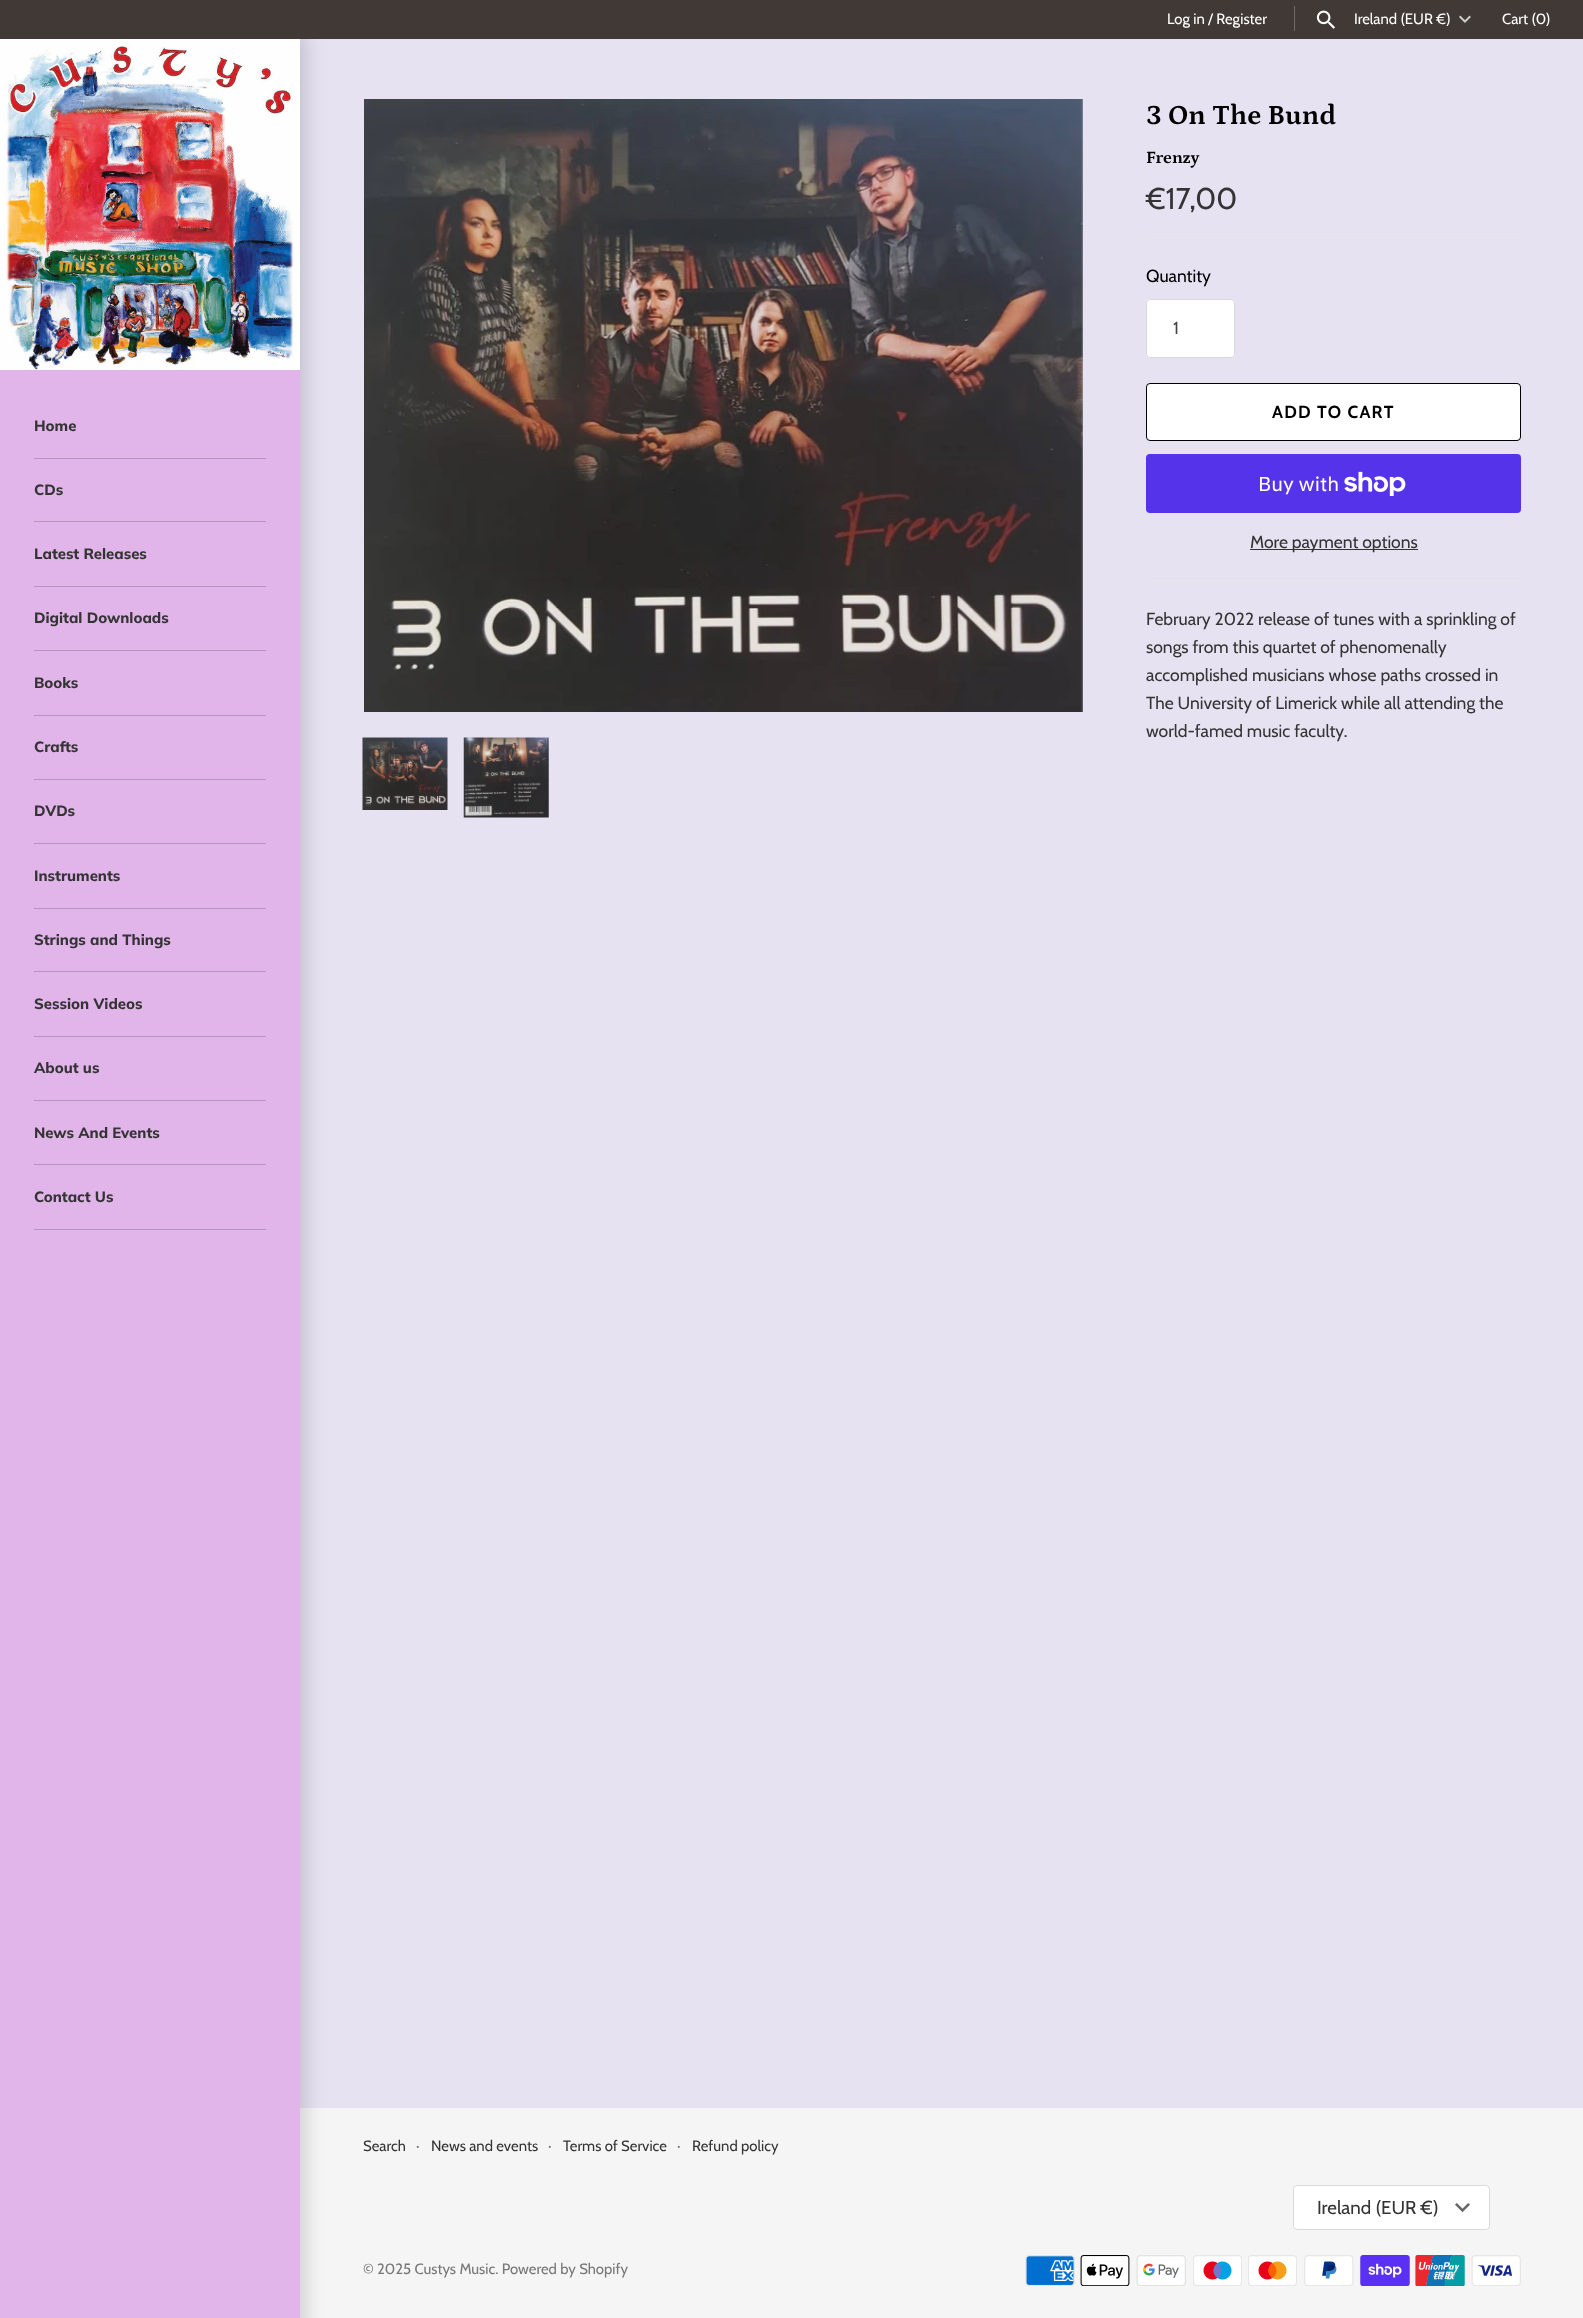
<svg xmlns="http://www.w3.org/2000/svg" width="1583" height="2318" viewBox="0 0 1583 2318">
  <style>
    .t1 { font: 14.9px Cabin; fill: #fff; }
    .t2 { font: 17.5px Cabin; fill: #a0b7d3; }
    .t3 { font: 800 14.9px Muli; fill: #343434; }
    .t4 { font: bold 28px Petrona; fill: #000; }
    .t5 { font: bold 17.5px Petrona; fill: #000; }
    .t6 { font: 30px Cabin; fill: #343434; }
    .t7 { font: 17.5px Cabin; fill: #000; }
    .t8 { font: 17.5px Cabin; fill: #444; }
    .t9 { font: bold 17.5px Cabin; letter-spacing: 1.25px; fill: #000; }
    .t10 { font: 20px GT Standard; fill: #fff; }
    .t11 { font: 17.5px Cabin; fill: #343434; }
    .t12 { font: 14.9px Cabin; fill: #343434; }
    .t13 { font: 14.9px Cabin; fill: #777; }
    .t14 { font: 18.75px Cabin; fill: #343434; }
  </style>
  <rect width="100%" height="100%" fill="#e6e2f2"/>
  <rect x="300" y="2108" width="1283" height="210" fill="#f5f5f5"/>
  <rect x="-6" y="33" width="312" height="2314" fill="#00000026" filter="blur(9.5px)"/>
  <rect x="0" y="0" width="1583" height="39" fill="#403935"/>
  <text x="1167" y="24" class="t1">Log in / Register</text>
  <rect x="1294" y="6" width="1" height="25" fill="#706b68"/>
  <image x="1316" y="10" width="19" height="19" href="images/1.png"/>
  <text x="1354" y="24" class="t1">Ireland (EUR €)</text>
  <image x="1459" y="15" width="12" height="8" href="images/2.png"/>
  <text x="1502" y="24" class="t1">Cart (0)</text>
  <image x="0" y="39" width="300" height="331" href="images/3.png"/>
  <text x="213" y="104" class="t2">...</text>
  <rect x="0" y="370" width="300" height="1948" fill="#e1b4ea"/>
  <rect x="34" y="458" width="232" height="1" fill="#b694bd"/>
  <text x="34" y="431" class="t3">Home</text>
  <rect x="34" y="521" width="232" height="1" fill="#b694bd"/>
  <text x="34" y="495" class="t3">CDs</text>
  <rect x="34" y="586" width="232" height="1" fill="#b694bd"/>
  <text x="34" y="559" class="t3">Latest Releases</text>
  <rect x="34" y="650" width="232" height="1" fill="#b694bd"/>
  <text x="34" y="623" class="t3">Digital Downloads</text>
  <rect x="34" y="715" width="232" height="1" fill="#b694bd"/>
  <text x="34" y="688" class="t3">Books</text>
  <rect x="34" y="779" width="232" height="1" fill="#b694bd"/>
  <text x="34" y="752" class="t3">Crafts</text>
  <rect x="34" y="843" width="232" height="1" fill="#b694bd"/>
  <text x="34" y="816" class="t3">DVDs</text>
  <rect x="34" y="908" width="232" height="1" fill="#b694bd"/>
  <text x="34" y="881" class="t3">Instruments</text>
  <rect x="34" y="971" width="232" height="1" fill="#b694bd"/>
  <text x="34" y="945" class="t3">Strings and Things</text>
  <rect x="34" y="1036" width="232" height="1" fill="#b694bd"/>
  <text x="34" y="1009" class="t3">Session Videos</text>
  <rect x="34" y="1100" width="232" height="1" fill="#b694bd"/>
  <text x="34" y="1073" class="t3">About us</text>
  <rect x="34" y="1164" width="232" height="1" fill="#b694bd"/>
  <text x="34" y="1138" class="t3">News And Events</text>
  <rect x="34" y="1229" width="232" height="1" fill="#b694bd"/>
  <text x="34" y="1202" class="t3">Contact Us</text>
  <rect x="363.5" y="98.5" width="720" height="614" fill="none" stroke="#e6e4ee"/>
  <image x="364" y="99" width="719" height="613" href="images/4.png"/>
  <image x="362" y="737" width="86" height="73" href="images/5.png"/>
  <image x="463" y="737" width="86" height="81" href="images/6.png"/>
  <text x="1146" y="124" class="t4">3 On The Bund</text>
  <text x="1146" y="163" class="t5">Frenzy</text>
  <text x="1146" y="209" class="t6">€17,00</text>
  <rect x="1146" y="235" width="375" height="1" fill="#e7e7e7"/>
  <text x="1146" y="282" class="t7">Quantity</text>
  <rect x="1146" y="299" width="89" height="59" rx="4" fill="#fff"/>
  <rect x="1146.5" y="299.5" width="88" height="58" rx="3.5" fill="none" stroke="#00000026"/>
  <text x="1173" y="334" class="t8">1</text>
  <rect x="1146.5" y="383.5" width="374" height="57" rx="3.5" fill="#fff" stroke="#000"/>
  <text x="1272" y="418" class="t9">ADD TO CART</text>
  <rect x="1146" y="454" width="375" height="59" rx="4" fill="#5433eb"/>
  <text x="1258" y="491" class="t10">Buy with</text>
  <image x="1344" y="471" width="62" height="25" href="images/7.png"/>
  <rect x="1250" y="549" width="168" height="1" fill="#343434"/>
  <text x="1250" y="548" class="t11">More payment options</text>
  <rect x="1146" y="581" width="375" height="1" fill="#e7e7e7"/>
  <text x="1146" y="625" class="t11">February 2022 release of tunes with a sprinkling of</text>
  <text x="1146" y="653" class="t11">songs from this quartet of phenomenally</text>
  <text x="1146" y="681" class="t11">accomplished musicians whose paths crossed in</text>
  <text x="1146" y="709" class="t11">The University of Limerick while all attending the</text>
  <text x="1146" y="737" class="t11">world-famed music faculty.</text>
  <text x="363" y="2151" class="t12">Search</text>
  <text x="416" y="2151" class="t13">·</text>
  <text x="431" y="2151" class="t12">News and events</text>
  <text x="548" y="2151" class="t13">·</text>
  <text x="563" y="2151" class="t12">Terms of Service</text>
  <text x="677" y="2151" class="t13">·</text>
  <text x="692" y="2151" class="t12">Refund policy</text>
  <rect x="1293" y="2185" width="197" height="45" rx="4" fill="#fff"/>
  <rect x="1293.5" y="2185.5" width="196" height="44" rx="3.5" fill="none" stroke="#00000026"/>
  <text x="1317" y="2214" class="t14">Ireland (EUR €)</text>
  <image x="1455" y="2203" width="15" height="10" href="images/8.png"/>
  <text x="363" y="2274" class="t13">© 2025 Custys Music. Powered by Shopify</text>
  <image x="1025" y="2255" width="50" height="31" href="images/9.png"/>
  <image x="1080" y="2255" width="50" height="31" href="images/10.png"/>
  <image x="1136" y="2255" width="50" height="31" href="images/11.png"/>
  <image x="1193" y="2255" width="49" height="31" href="images/12.png"/>
  <image x="1248" y="2255" width="49" height="31" href="images/13.png"/>
  <image x="1304" y="2255" width="50" height="31" href="images/14.png"/>
  <image x="1360" y="2255" width="50" height="31" href="images/15.png"/>
  <image x="1415" y="2255" width="50" height="31" href="images/16.png"/>
  <image x="1471" y="2255" width="50" height="31" href="images/17.png"/>
</svg>
